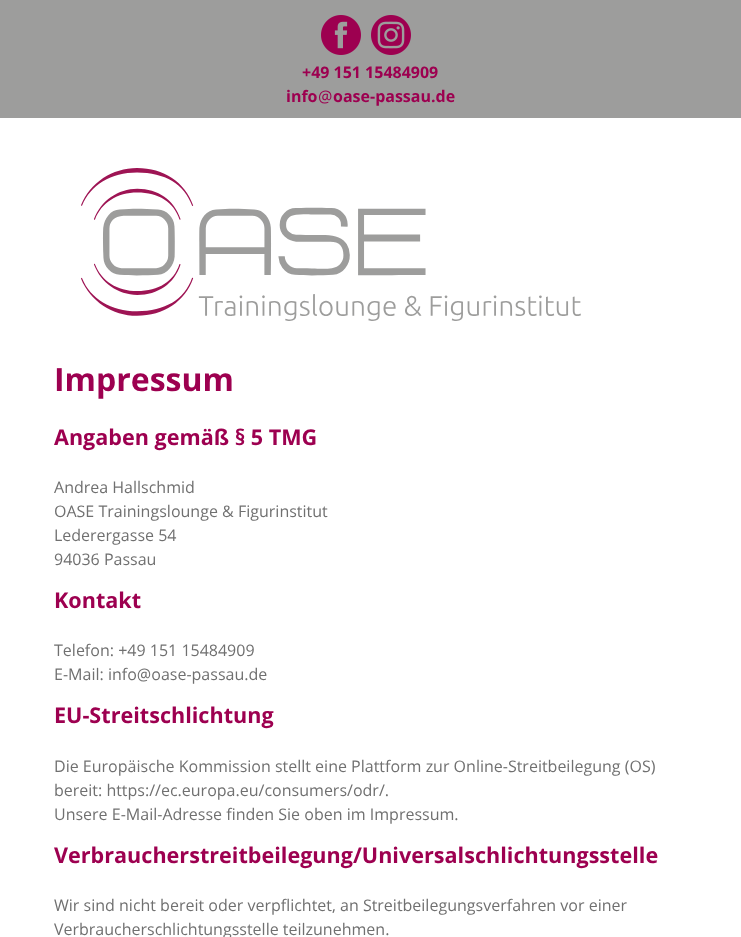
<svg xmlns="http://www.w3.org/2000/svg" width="741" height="937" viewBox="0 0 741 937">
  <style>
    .t1 { font: bold 16px Open Sans; fill: #9d0050; }
    .t2 { font: 16px Open Sans; fill: #9d0050; }
    .t3 { font: bold 32px Open Sans; fill: #9d0050; }
    .t4 { font: bold 21.6px Open Sans; fill: #9d0050; }
    .t5 { font: 16px Open Sans; fill: #707070; }
  </style>
  <rect width="100%" height="100%" fill="#fff"/>
  <rect x="0" y="0" width="741" height="118" fill="#9d9d9c"/>
  <image x="321" y="15" width="40" height="40" href="images/1.png"/>
  <image x="371" y="15" width="40" height="40" href="images/2.png"/>
  <text x="302" y="78" class="t1">+49 151 15484909</text>
  <text x="286" y="102" class="t1">info</text>
  <text x="318" y="102" class="t2">@</text>
  <text x="333" y="102" class="t1">oase-passau.de</text>
  <image x="81" y="168" width="500" height="153" href="images/3.png"/>
  <text x="54" y="391" class="t3">Impressum</text>
  <text x="54" y="445" class="t4">Angaben gemäß § 5 TMG</text>
  <text x="54" y="493" class="t5">Andrea Hallschmid</text>
  <text x="54" y="517" class="t5">OASE Trainingslounge &amp; Figurinstitut</text>
  <text x="54" y="541" class="t5">Lederergasse 54</text>
  <text x="54" y="565" class="t5">94036 Passau</text>
  <text x="54" y="608" class="t4">Kontakt</text>
  <text x="54" y="656" class="t5">Telefon: +49 151 15484909</text>
  <text x="54" y="680" class="t5">E-Mail: info@oase-passau.de</text>
  <text x="54" y="723" class="t4">EU-Streitschlichtung</text>
  <text x="54" y="772" class="t5">Die Europäische Kommission stellt eine Plattform zur Online-Streitbeilegung (OS)</text>
  <text x="54" y="796" class="t5">bereit: https://ec.europa.eu/consumers/odr/.</text>
  <text x="54" y="820" class="t5">Unsere E-Mail-Adresse finden Sie oben im Impressum.</text>
  <text x="54" y="863" class="t4">Verbraucherstreitbeilegung/Universalschlichtungsstelle</text>
  <text x="54" y="911" class="t5">Wir sind nicht bereit oder verpflichtet, an Streitbeilegungsverfahren vor einer</text>
  <text x="54" y="935" class="t5">Verbraucherschlichtungsstelle teilzunehmen.</text>
</svg>
